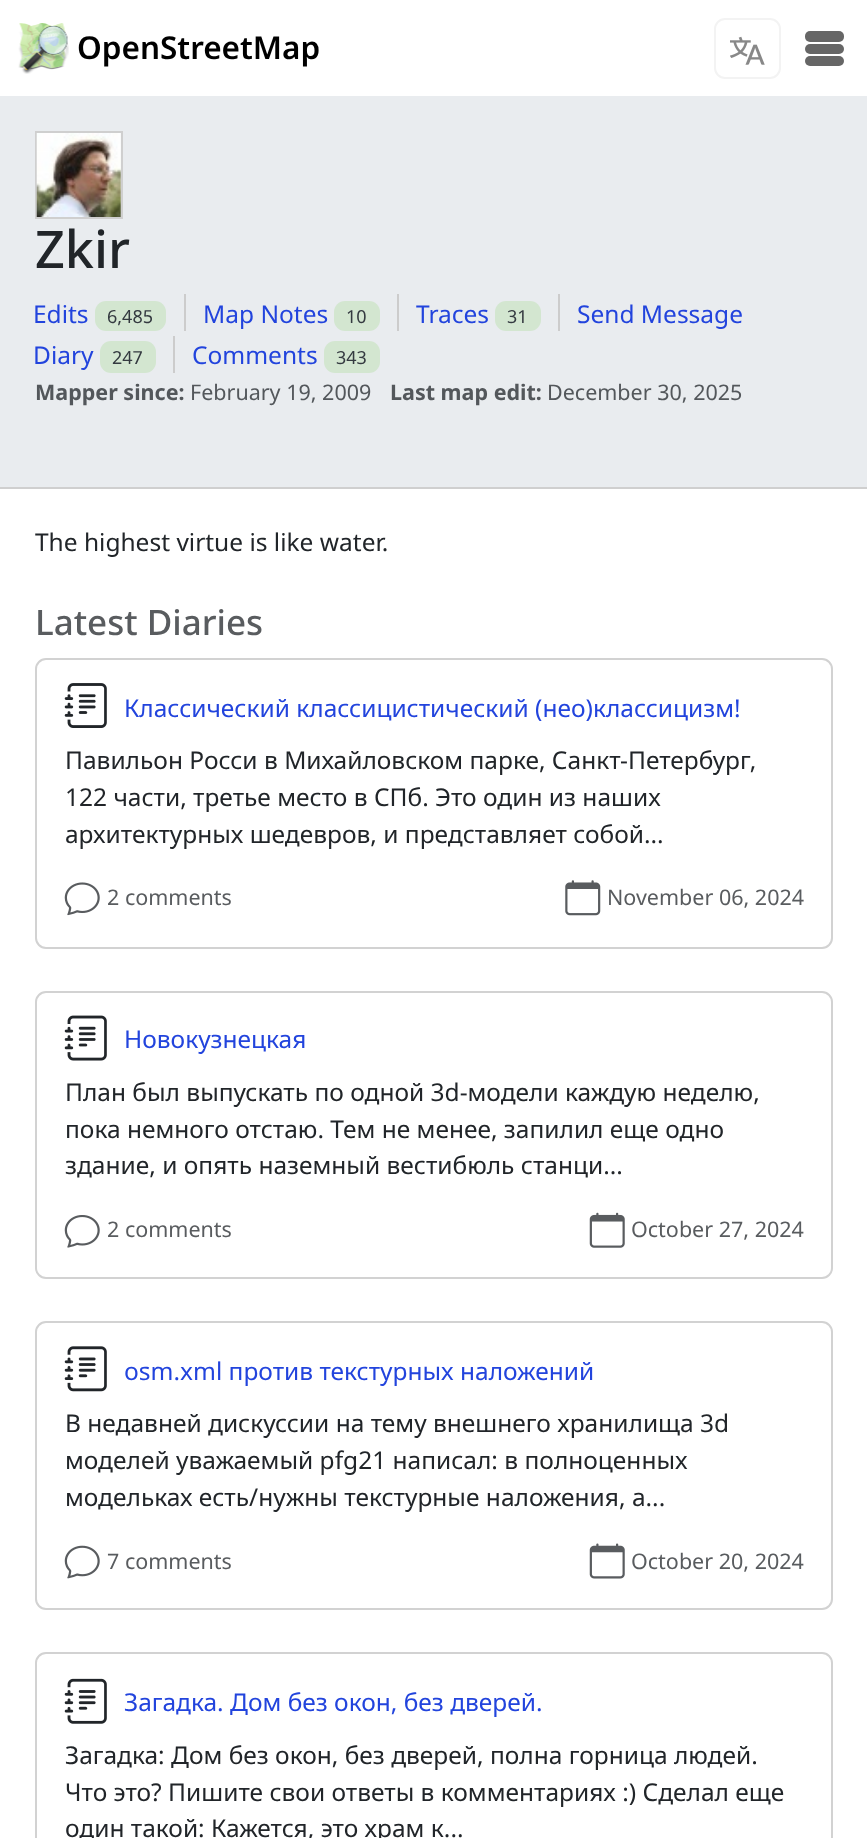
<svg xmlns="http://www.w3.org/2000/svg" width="867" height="1838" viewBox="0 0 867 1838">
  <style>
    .t1 { font: 600 31.5px Noto Sans; fill: #000; }
    .t2 { font: 500 52px Noto Sans; fill: #212529; }
    .t3 { font: 24.5px Noto Sans; fill: #24d; }
    .t4 { font: 18px Noto Sans; fill: #343a40; }
    .t5 { font: bold 21.5px Noto Sans; fill: #53575b; }
    .t6 { font: 21.5px Noto Sans; fill: #53575b; }
    .t7 { font: 24.5px Noto Sans; fill: #212529; }
    .t8 { font: 500 35px Noto Sans; fill: #595c5f; }
    .t9 { font: 21.5px Noto Sans; fill: #595c5f; }
  </style>
  <rect width="100%" height="100%" fill="#fff"/>
  <image x="18" y="23" width="51" height="51" href="images/1.png"/>
  <text x="77" y="59" class="t1">OpenStreetMap</text>
  <rect x="715" y="19" width="65" height="59" rx="10" fill="none" stroke="#f3f3f3" stroke-width="2"/>
  <image x="730" y="36" width="35" height="29" href="images/2.png"/>
  <rect x="805" y="31" width="39" height="11" rx="5" fill="#666"/>
  <rect x="805" y="44" width="39" height="10" rx="5" fill="#666"/>
  <rect x="805" y="56" width="39" height="10" rx="5" fill="#666"/>
  <rect x="0" y="96" width="867" height="391" fill="#e9ecef"/>
  <rect x="0" y="487" width="867" height="2" fill="#cfcfcf"/>
  <rect x="36" y="132" width="86" height="86" fill="none" stroke="#cfcfcf" stroke-width="2"/>
  <image x="36" y="133" width="85" height="84" href="images/3.png"/>
  <text x="35" y="268" class="t2">Zkir</text>
  <text x="33" y="323" class="t3">Edits</text>
  <rect x="95" y="301" width="71" height="30" rx="11" fill="#d3e6d0"/>
  <text x="107" y="323" class="t4">6,485</text>
  <rect x="184" y="294" width="2" height="37" fill="#ccc"/>
  <text x="203" y="323" class="t3">Map Notes</text>
  <rect x="334" y="301" width="46" height="30" rx="11" fill="#d3e6d0"/>
  <text x="346" y="323" class="t4">10</text>
  <rect x="397" y="294" width="2" height="37" fill="#ccc"/>
  <text x="416" y="323" class="t3">Traces</text>
  <rect x="495" y="301" width="46" height="30" rx="11" fill="#d3e6d0"/>
  <text x="507" y="323" class="t4">31</text>
  <rect x="558" y="294" width="2" height="37" fill="#ccc"/>
  <text x="577" y="323" class="t3">Send Message</text>
  <text x="33" y="364" class="t3">Diary</text>
  <rect x="100" y="341" width="56" height="32" rx="11" fill="#d3e6d0"/>
  <text x="112" y="364" class="t4">247</text>
  <rect x="173" y="336" width="2" height="37" fill="#ccc"/>
  <text x="192" y="364" class="t3">Comments</text>
  <rect x="324" y="341" width="56" height="32" rx="11" fill="#d3e6d0"/>
  <text x="336" y="364" class="t4">343</text>
  <text x="35" y="400" class="t5">Mapper since:</text>
  <text x="190" y="400" class="t6">February 19, 2009</text>
  <text x="390" y="400" class="t5">Last map edit:</text>
  <text x="547" y="400" class="t6">December 30, 2025</text>
  <text x="35" y="551" class="t7">The highest virtue is like water.</text>
  <text x="35" y="635" class="t8">Latest Diaries</text>
  <rect x="36" y="659" width="796" height="289" rx="10" fill="none" stroke="#d2d2d2" stroke-width="2"/>
  <image x="64" y="683" width="43" height="45" href="images/4.png"/>
  <text x="124" y="717" class="t3">Классический классицистический (нео)классицизм!</text>
  <text x="65" y="769" class="t7">Павильон Росси в Михайловском парке, Санкт-Петербург,</text>
  <text x="65" y="806" class="t7">122 части, третье место в СПб. Это один из наших</text>
  <text x="65" y="843" class="t7">архитектурных шедевров, и представляет собой...</text>
  <image x="64" y="882" width="36" height="34" href="images/5.png"/>
  <text x="107" y="905" class="t9">2 comments</text>
  <image x="565" y="880" width="36" height="36" href="images/6.png"/>
  <text x="607" y="905" class="t9">November 06, 2024</text>
  <rect x="36" y="992" width="796" height="286" rx="10" fill="none" stroke="#d2d2d2" stroke-width="2"/>
  <image x="64" y="1015" width="43" height="46" href="images/7.png"/>
  <text x="124" y="1048" class="t3">Новокузнецкая</text>
  <text x="65" y="1101" class="t7">План был выпускать по одной 3d-модели каждую неделю,</text>
  <text x="65" y="1138" class="t7">пока немного отстаю. Тем не менее, запилил еще одно</text>
  <text x="65" y="1174" class="t7">здание, и опять наземный вестибюль станци...</text>
  <image x="64" y="1215" width="36" height="33" href="images/8.png"/>
  <text x="107" y="1237" class="t9">2 comments</text>
  <image x="589" y="1212" width="36" height="36" href="images/9.png"/>
  <text x="631" y="1237" class="t9">October 27, 2024</text>
  <rect x="36" y="1322" width="796" height="287" rx="10" fill="none" stroke="#d2d2d2" stroke-width="2"/>
  <image x="64" y="1346" width="43" height="46" href="images/10.png"/>
  <text x="124" y="1380" class="t3">osm.xml против текстурных наложений</text>
  <text x="65" y="1432" class="t7">В недавней дискуссии на тему внешнего хранилища 3d</text>
  <text x="65" y="1469" class="t7">моделей уважаемый pfg21 написал: в полноценных</text>
  <text x="65" y="1506" class="t7">модельках есть/нужны текстурные наложения, а...</text>
  <image x="64" y="1545" width="36" height="34" href="images/11.png"/>
  <text x="107" y="1569" class="t9">7 comments</text>
  <image x="589" y="1543" width="36" height="36" href="images/12.png"/>
  <text x="631" y="1569" class="t9">October 20, 2024</text>
  <rect x="36" y="1653" width="796" height="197" rx="10" fill="none" stroke="#d2d2d2" stroke-width="2"/>
  <image x="64" y="1678" width="43" height="46" href="images/13.png"/>
  <text x="124" y="1711" class="t3">Загадка. Дом без окон, без дверей.</text>
  <text x="65" y="1764" class="t7">Загадка: Дом без окон, без дверей, полна горница людей.</text>
  <text x="65" y="1801" class="t7">Что это? Пишите свои ответы в комментариях :) Сделал еще</text>
  <text x="65" y="1837" class="t7">один такой: Кажется, это храм к...</text>
</svg>
